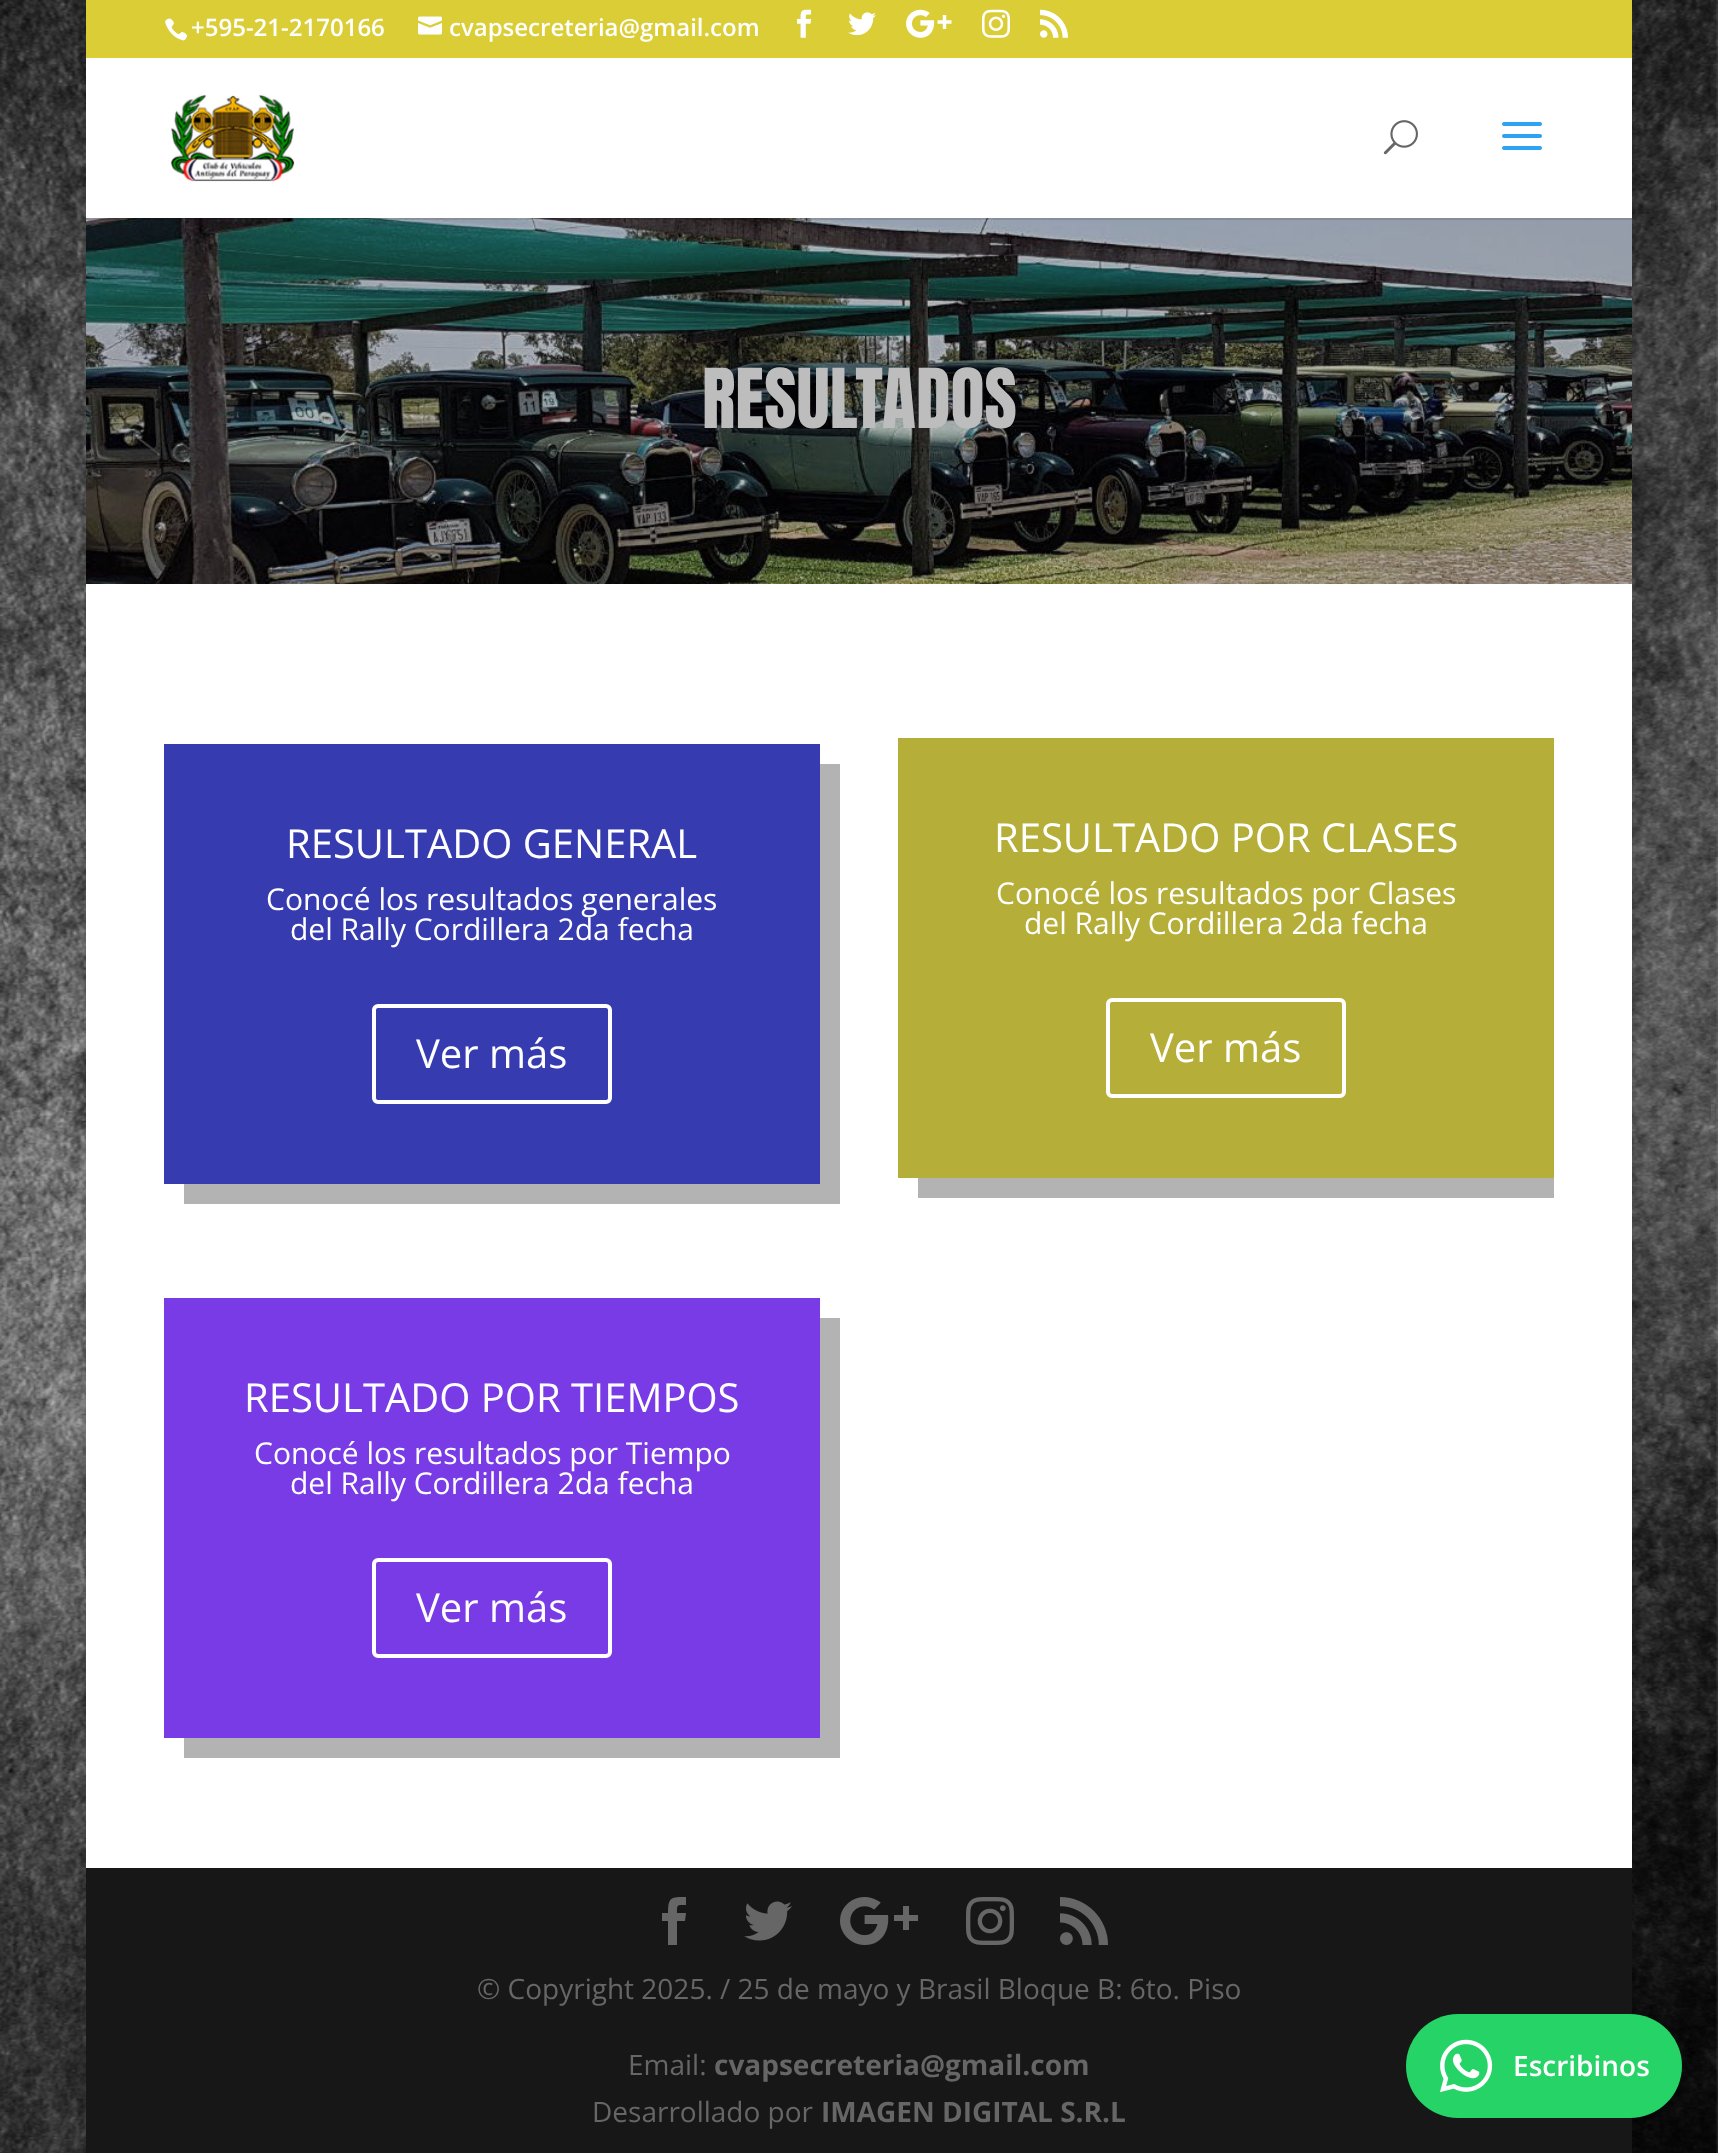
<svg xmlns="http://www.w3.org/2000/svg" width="1718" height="2153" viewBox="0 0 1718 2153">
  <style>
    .t1 { font: 600 24px Open Sans; fill: #fff; }
    .t2 { font: 70px Anton; fill: #bdbdbd; }
    .t3 { font: 40px Open Sans; fill: #fff; }
    .t4 { font: 30px Open Sans; fill: #fff; }
    .t5 { font: 28px Open Sans; fill: #666; }
    .t6 { font: bold 28px Open Sans; fill: #666; }
    .t7 { font: 600 28px Open Sans; fill: #fff; }
  </style>
  <rect width="100%" height="100%" fill="#fff"/>
  <image x="0" y="0" width="1718" height="2153" href="images/1.png"/>
  <rect x="86" y="-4" width="1546" height="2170" fill="#00000033" filter="blur(10px)"/>
  <rect x="86" y="0" width="1546" height="58" fill="#dbcd36"/>
  <image x="165" y="18" width="22" height="23" href="images/2.png"/>
  <text x="191" y="36" class="t1">+595-21-2170166</text>
  <image x="418" y="16" width="24" height="19" href="images/3.png"/>
  <text x="449" y="36" class="t1">cvapsecreteria@gmail.com</text>
  <image x="797" y="9" width="15" height="29" href="images/4.png"/>
  <image x="848" y="12" width="28" height="24" href="images/5.png"/>
  <image x="906" y="9" width="46" height="29" href="images/6.png"/>
  <image x="982" y="9" width="28" height="29" href="images/7.png"/>
  <image x="1040" y="9" width="28" height="29" href="images/8.png"/>
  <image x="86" y="218" width="1546" height="366" href="images/12.png"/>
  <rect x="86" y="218" width="1546" height="2" fill="#0000001a"/>
  <rect x="86" y="58" width="1546" height="160" fill="#fff"/>
  <image x="170" y="94" width="125" height="88" href="images/9.png"/>
  <image x="1383" y="120" width="35" height="35" href="images/10.png"/>
  <image x="1502" y="122" width="40" height="28" href="images/11.png"/>
  <text x="702" y="428" class="t2">RESULTADOS</text>
  <rect x="86" y="584" width="1546" height="1284" fill="#fff"/>
  <path d="M184 1184V1204H840V764H820V1184Z" fill="#b3b3b3"/>
  <rect x="164" y="744" width="656" height="440" fill="#363caf"/>
  <text x="286" y="858" class="t3">RESULTADO GENERAL</text>
  <text x="266" y="910" class="t4">Conocé los resultados generales</text>
  <text x="290" y="940" class="t4">del Rally Cordillera 2da fecha</text>
  <rect x="374" y="1006" width="236" height="96" rx="4" fill="none" stroke="#fff" stroke-width="4"/>
  <text x="416" y="1068" class="t3">Ver más</text>
  <rect x="918" y="1178" width="636" height="20" fill="#b3b3b3"/>
  <rect x="898" y="738" width="656" height="440" fill="#b5ae38"/>
  <text x="994" y="852" class="t3">RESULTADO POR CLASES</text>
  <text x="996" y="904" class="t4">Conocé los resultados por Clases</text>
  <text x="1024" y="934" class="t4">del Rally Cordillera 2da fecha</text>
  <rect x="1108" y="1000" width="236" height="96" rx="4" fill="none" stroke="#fff" stroke-width="4"/>
  <text x="1150" y="1062" class="t3">Ver más</text>
  <path d="M184 1738V1758H840V1318H820V1738Z" fill="#b3b3b3"/>
  <rect x="164" y="1298" width="656" height="440" fill="#793be5"/>
  <text x="244" y="1412" class="t3">RESULTADO POR TIEMPOS</text>
  <text x="254" y="1464" class="t4">Conocé los resultados por Tiempo</text>
  <text x="290" y="1494" class="t4">del Rally Cordillera 2da fecha</text>
  <rect x="374" y="1560" width="236" height="96" rx="4" fill="none" stroke="#fff" stroke-width="4"/>
  <text x="416" y="1622" class="t3">Ver más</text>
  <rect x="86" y="1868" width="1546" height="285" fill="#171717"/>
  <path d="M668 1945H677V1921H685L686 1913H677C677 1904 677 1905 686 1905V1897C671 1897 668 1897 668 1913H662V1921H668Z" fill="#666"/>
  <image x="744" y="1901" width="48" height="40" href="images/13.png"/>
  <image x="840" y="1897" width="78" height="48" href="images/14.png"/>
  <image x="966" y="1897" width="48" height="48" href="images/15.png"/>
  <image x="1060" y="1897" width="48" height="48" href="images/16.png"/>
  <text x="477" y="1999" class="t5">© Copyright 2025. / 25 de mayo y Brasil Bloque B: 6to. Piso</text>
  <text x="628" y="2075" class="t5">Email:</text>
  <text x="714" y="2075" class="t6">cvapsecreteria@gmail.com</text>
  <text x="592" y="2122" class="t5">Desarrollado por</text>
  <text x="821" y="2122" class="t6">IMAGEN DIGITAL S.R.L</text>
  <rect x="1406" y="2014" width="276" height="104" rx="52" fill="#25d366"/>
  <image x="1440" y="2039" width="53" height="54" href="images/17.png"/>
  <text x="1513" y="2076" class="t7">Escribinos</text>
</svg>
